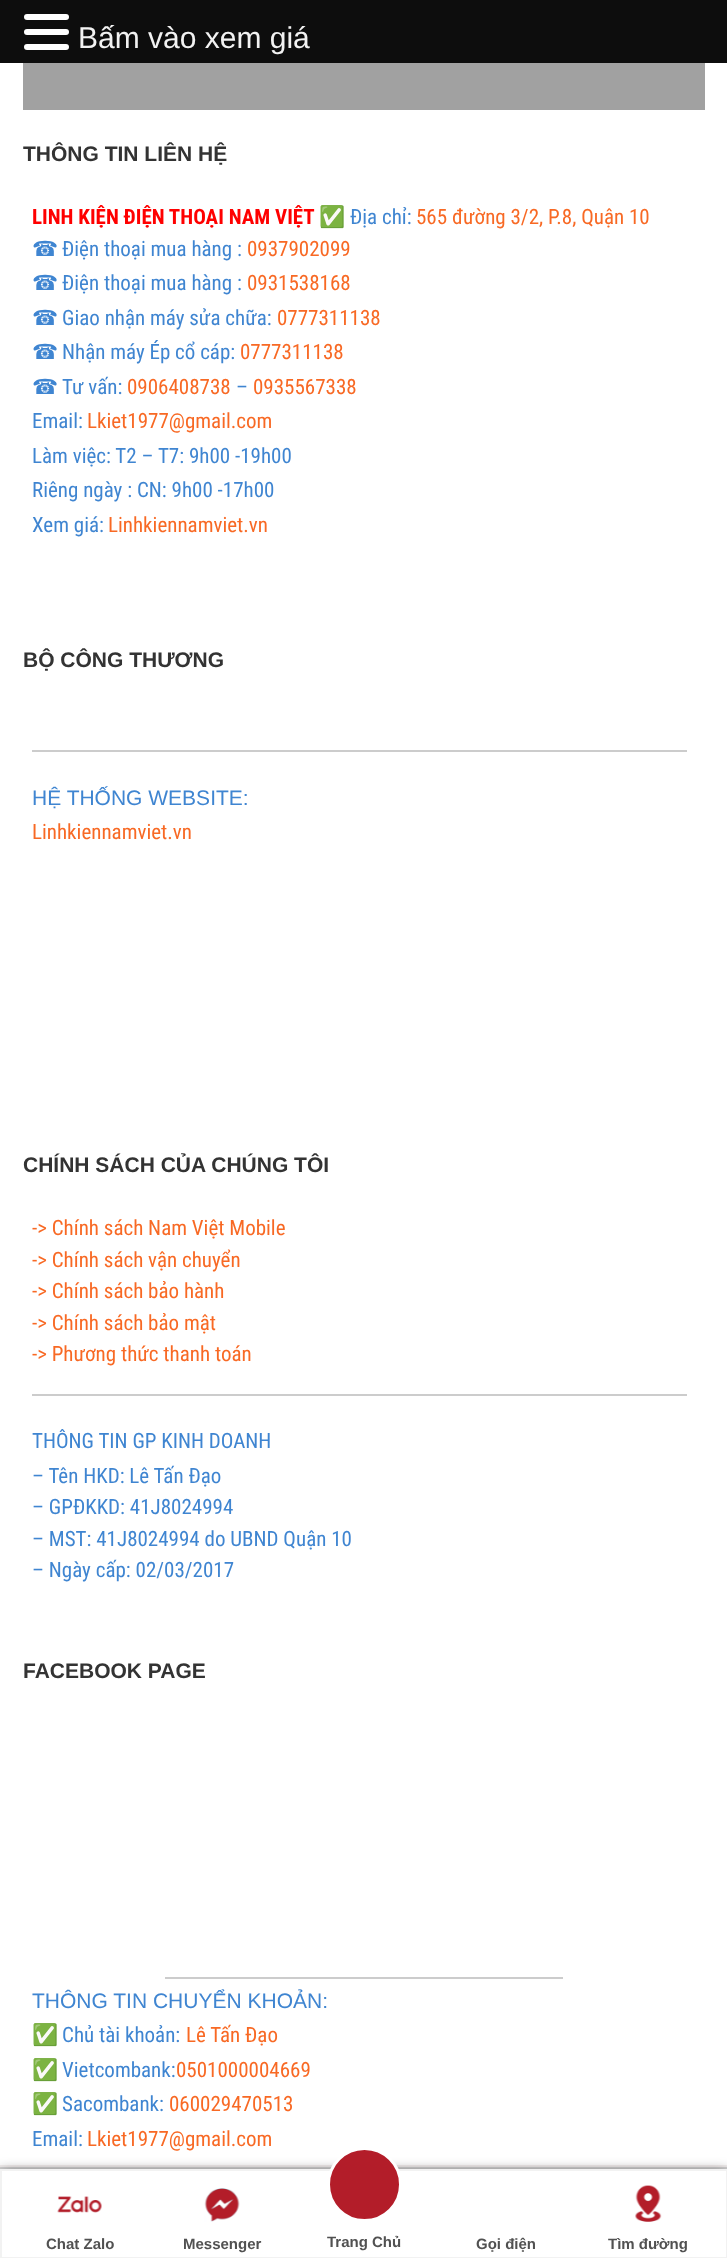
<svg xmlns="http://www.w3.org/2000/svg" width="727" height="2258" viewBox="0 0 727 2258">
  <style>
    .t1 { font: 30px Liberation Sans; fill: #f2f2f2; }
    .t2 { font: bold 21px Liberation Sans; fill: #333; }
    .t3 { font: bold 21px Roboto Condensed; fill: #f00; }
    .t4 { font: 21px Noto Color Emoji; fill: #3f85d1; }
    .t5 { font: 21px Roboto Condensed; fill: #3f85d1; }
    .t6 { font: 21px Roboto Condensed; fill: #f86924; }
    .t7 { font: 21px DejaVu Sans; fill: #3f85d1; }
    .t8 { font: 21px Liberation Sans; fill: #3f85d1; }
    .t9 { font: bold 15px Liberation Sans; fill: #515151; }
  </style>
  <rect width="100%" height="100%" fill="#fff"/>
  <rect x="0" y="0" width="727" height="63" fill="#0d0d0d"/>
  <rect x="24" y="14" width="45" height="6" rx="3" fill="#fff"/>
  <rect x="24" y="29" width="45" height="6" rx="3" fill="#fff"/>
  <rect x="24" y="44" width="45" height="6" rx="3" fill="#fff"/>
  <text x="78" y="48" class="t1">Bấm vào xem giá</text>
  <rect x="23" y="63" width="682" height="47" fill="#a1a1a1"/>
  <text x="23" y="161" class="t2">THÔNG TIN LIÊN HỆ</text>
  <text x="32" y="224" class="t3">LINH KIỆN ĐIỆN THOẠI NAM VIỆT</text>
  <text x="319" y="224" class="t4">✅</text>
  <text x="350" y="224" class="t5">Địa chỉ:</text>
  <text x="416" y="224" class="t6">565 đường 3/2, P.8, Quận 10</text>
  <text x="32" y="256" class="t7">☎</text>
  <text x="62" y="256" class="t5">Điện thoại mua hàng :</text>
  <text x="247" y="256" class="t6">0937902099</text>
  <text x="32" y="290" class="t7">☎</text>
  <text x="62" y="290" class="t5">Điện thoại mua hàng :</text>
  <text x="247" y="290" class="t6">0931538168</text>
  <text x="32" y="325" class="t7">☎</text>
  <text x="62" y="325" class="t5">Giao nhận máy sửa chữa:</text>
  <text x="277" y="325" class="t6">0777311138</text>
  <text x="32" y="359" class="t7">☎</text>
  <text x="62" y="359" class="t5">Nhận máy Ép cổ cáp:</text>
  <text x="240" y="359" class="t6">0777311138</text>
  <text x="32" y="394" class="t7">☎</text>
  <text x="62" y="394" class="t5">Tư vấn:</text>
  <text x="127" y="394" class="t6">0906408738</text>
  <text x="236" y="394" class="t5">–</text>
  <text x="253" y="394" class="t6">0935567338</text>
  <text x="32" y="428" class="t5">Email:</text>
  <text x="87" y="428" class="t6">Lkiet1977@gmail.com</text>
  <text x="32" y="463" class="t5">Làm việc: T2 – T7: 9h00 -19h00</text>
  <text x="32" y="497" class="t5">Riêng ngày : CN: 9h00 -17h00</text>
  <text x="32" y="532" class="t5">Xem giá:</text>
  <text x="108" y="532" class="t6">Linhkiennamviet.vn</text>
  <text x="23" y="667" class="t2">BỘ CÔNG THƯƠNG</text>
  <rect x="32" y="750" width="655" height="2" fill="#ccc"/>
  <text x="32" y="805" class="t8">HỆ THỐNG WEBSITE:</text>
  <text x="32" y="839" class="t6">Linhkiennamviet.vn</text>
  <text x="23" y="1172" class="t2">CHÍNH SÁCH CỦA CHÚNG TÔI</text>
  <text x="32" y="1235" class="t6">-&gt; Chính sách Nam Việt Mobile</text>
  <text x="32" y="1267" class="t6">-&gt; Chính sách vận chuyển</text>
  <text x="32" y="1298" class="t6">-&gt; Chính sách bảo hành</text>
  <text x="32" y="1330" class="t6">-&gt; Chính sách bảo mật</text>
  <text x="32" y="1361" class="t6">-&gt; Phương thức thanh toán</text>
  <rect x="32" y="1394" width="655" height="2" fill="#ccc"/>
  <text x="32" y="1448" class="t5">THÔNG TIN GP KINH DOANH</text>
  <text x="32" y="1483" class="t5">– Tên HKD: Lê Tấn Đạo</text>
  <text x="32" y="1514" class="t5">– GPĐKKD: 41J8024994</text>
  <text x="32" y="1546" class="t5">– MST: 41J8024994 do UBND Quận 10</text>
  <text x="32" y="1577" class="t5">– Ngày cấp: 02/03/2017</text>
  <text x="23" y="1678" class="t2">FACEBOOK PAGE</text>
  <rect x="165" y="1977" width="398" height="2" fill="#ccc"/>
  <text x="32" y="2008" class="t8">THÔNG TIN CHUYỂN KHOẢN:</text>
  <text x="32" y="2042" class="t4">✅</text>
  <text x="62" y="2042" class="t5">Chủ tài khoản:</text>
  <text x="186" y="2042" class="t6">Lê Tấn Đạo</text>
  <text x="32" y="2077" class="t4">✅</text>
  <text x="62" y="2077" class="t5">Vietcombank:</text>
  <text x="176" y="2077" class="t6">0501000004669</text>
  <text x="32" y="2111" class="t4">✅</text>
  <text x="62" y="2111" class="t5">Sacombank:</text>
  <text x="169" y="2111" class="t6">060029470513</text>
  <text x="32" y="2146" class="t5">Email:</text>
  <text x="87" y="2146" class="t6">Lkiet1977@gmail.com</text>
  <rect x="0" y="2167" width="727" height="2" fill="#d8d8d8"/>
  <rect x="0" y="2165" width="727" height="2" fill="#f5f0f0"/>
  <rect x="0" y="2175" width="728" height="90" fill="#000" filter="blur(7.5px)"/>
  <rect x="1" y="2170" width="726" height="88" fill="#fff" stroke="#f2f2f2" stroke-width="2"/>
  <image x="57" y="2196" width="45" height="17" href="images/1.png"/>
  <text x="46" y="2249" class="t9">Chat Zalo</text>
  <image x="204" y="2188" width="36" height="34" href="images/2.png"/>
  <text x="183" y="2249" class="t9">Messenger</text>
  <circle cx="364.5" cy="2184.5" r="36" fill="#b31d29" stroke="#fff" stroke-width="3"/>
  <text x="327" y="2247" class="t9">Trang Chủ</text>
  <text x="476" y="2249" class="t9">Gọi điện</text>
  <image x="635" y="2185" width="27" height="37" href="images/3.png"/>
  <text x="608" y="2249" class="t9">Tìm đường</text>
</svg>
